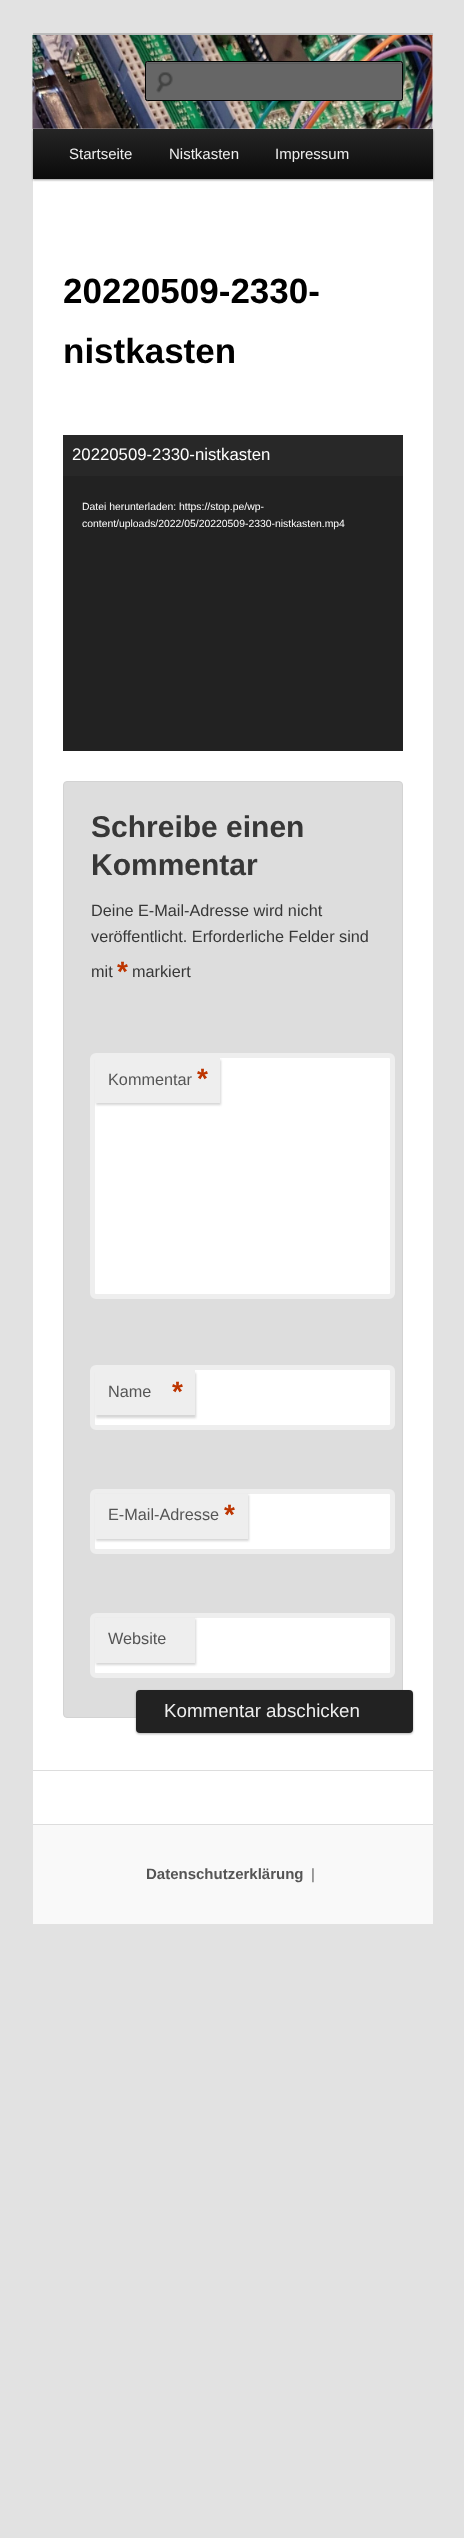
<svg xmlns="http://www.w3.org/2000/svg" width="464" height="2538" viewBox="0 0 464 2538">
  <style>
    .t1 { font: 15px Liberation Sans; fill: #eee; }
    .t2 { font: bold 35px Liberation Sans; fill: #000; }
    .t3 { font: 16.75px Liberation Sans; fill: #fff; }
    .t4 { font: 10.4px Liberation Sans; fill: #fff; }
    .t5 { font: bold 30px Liberation Sans; fill: #373737; }
    .t6 { font: 16.25px Liberation Sans; fill: #373737; }
    .t7 { font: bold 28px Liberation Sans; fill: #bd3500; }
    .t8 { font: 16.25px Liberation Sans; fill: #555; }
    .t9 { font: 18.75px Liberation Sans; fill: #eee; }
    .t10 { font: bold 15px Liberation Sans; fill: #555; }
    .t11 { font: 15px Liberation Sans; fill: #666; }
  </style>
  <defs>
    <linearGradient id="g1" gradientUnits="userSpaceOnUse" x1="233" y1="129" x2="233" y2="179"><stop offset="0" stop-color="#252525"/><stop offset="1" stop-color="#0a0a0a"/></linearGradient>
  </defs>
  <rect width="100%" height="100%" fill="#e2e2e2"/>
  <rect x="33" y="36" width="400" height="1788" fill="#fff"/>
  <rect x="33" y="33" width="400" height="3" fill="#bbb"/>
  <rect x="33" y="130" width="400" height="50" fill="#00000066" filter="blur(1px)"/>
  <image x="32" y="35" width="401" height="94" href="images/1.png"/>
  <rect x="145" y="61" width="258" height="40" rx="2.5" fill="#666"/>
  <image x="156" y="72" width="17" height="21" href="images/2.png"/>
  <path d="M148 64H400C401 64 401 64 401 65C401 64 401 63 400 63H146V65C146 64 147 64 148 64Z" fill="#5c5c5c"/>
  <rect x="145.5" y="61.5" width="257" height="39" rx="2" fill="none" stroke="#000"/>
  <rect x="33" y="129" width="400" height="50" fill="url(#g1)"/>
  <text x="69" y="159" class="t1">Startseite</text>
  <text x="169" y="159" class="t1">Nistkasten</text>
  <text x="275" y="159" class="t1">Impressum</text>
  <text x="63" y="303" class="t2">20220509-2330-</text>
  <text x="63" y="363" class="t2">nistkasten</text>
  <rect x="63" y="435" width="340" height="41" fill="#282828"/>
  <text x="72" y="460" class="t3">20220509-2330-nistkasten</text>
  <rect x="63" y="476" width="340" height="275" fill="#222"/>
  <text x="82" y="510" class="t4">Datei herunterladen: https://stop.pe/wp-</text>
  <text x="82" y="527" class="t4">content/uploads/2022/05/20220509-2330-nistkasten.mp4</text>
  <rect x="63.5" y="781.5" width="339" height="936" rx="3.5" fill="#ddd" stroke="#d3d3d3"/>
  <text x="91" y="837" class="t5">Schreibe einen</text>
  <text x="91" y="875" class="t5">Kommentar</text>
  <text x="91" y="916" class="t6">Deine E-Mail-Adresse wird nicht</text>
  <text x="91" y="942" class="t6">veröffentlicht. Erforderliche Felder sind</text>
  <text x="91" y="977" class="t6">mit</text>
  <text x="117" y="981" class="t7">*</text>
  <text x="132" y="977" class="t6">markiert</text>
  <rect x="92.5" y="1055.5" width="300" height="241" rx="3.5" fill="#fff" stroke="#eee" stroke-width="5"/>
  <rect x="96" y="1060" width="125" height="45" fill="#cccccccc" filter="blur(1px)"/>
  <rect x="95" y="1058" width="125" height="45" fill="#eee"/>
  <text x="108" y="1085" class="t8">Kommentar</text>
  <text x="197" y="1088" class="t7">*</text>
  <rect x="92.5" y="1367.5" width="300" height="60" rx="3.5" fill="#fff" stroke="#eee" stroke-width="5"/>
  <rect x="96" y="1373" width="100" height="45" fill="#cccccccc" filter="blur(1px)"/>
  <rect x="95" y="1370" width="100" height="45" fill="#eee"/>
  <text x="108" y="1397" class="t8">Name</text>
  <text x="172" y="1401" class="t7">*</text>
  <rect x="92.5" y="1491.5" width="300" height="60" rx="3.5" fill="#fff" stroke="#eee" stroke-width="5"/>
  <rect x="96" y="1495" width="153" height="46" fill="#cccccccc" filter="blur(1px)"/>
  <rect x="95" y="1494" width="153" height="45" fill="#eee"/>
  <text x="108" y="1520" class="t8">E-Mail-Adresse</text>
  <text x="224" y="1524" class="t7">*</text>
  <rect x="92.5" y="1615.5" width="300" height="60" rx="3.5" fill="#fff" stroke="#eee" stroke-width="5"/>
  <rect x="96" y="1619" width="100" height="46" fill="#cccccccc" filter="blur(1px)"/>
  <rect x="95" y="1618" width="100" height="45" fill="#eee"/>
  <text x="108" y="1644" class="t8">Website</text>
  <rect x="136" y="1691" width="277" height="43" rx="4" fill="#0000004d" filter="blur(1px)"/>
  <rect x="136" y="1690" width="277" height="43" rx="4" fill="#222"/>
  <text x="164" y="1717" class="t9">Kommentar abschicken</text>
  <rect x="33" y="1770" width="400" height="1" fill="#ddd"/>
  <rect x="33" y="1825" width="400" height="99" fill="#f9f9f9"/>
  <rect x="33" y="1824" width="400" height="1" fill="#ddd"/>
  <text x="146" y="1879" class="t10">Datenschutzerklärung</text>
  <text x="311" y="1879" class="t11">|</text>
</svg>
